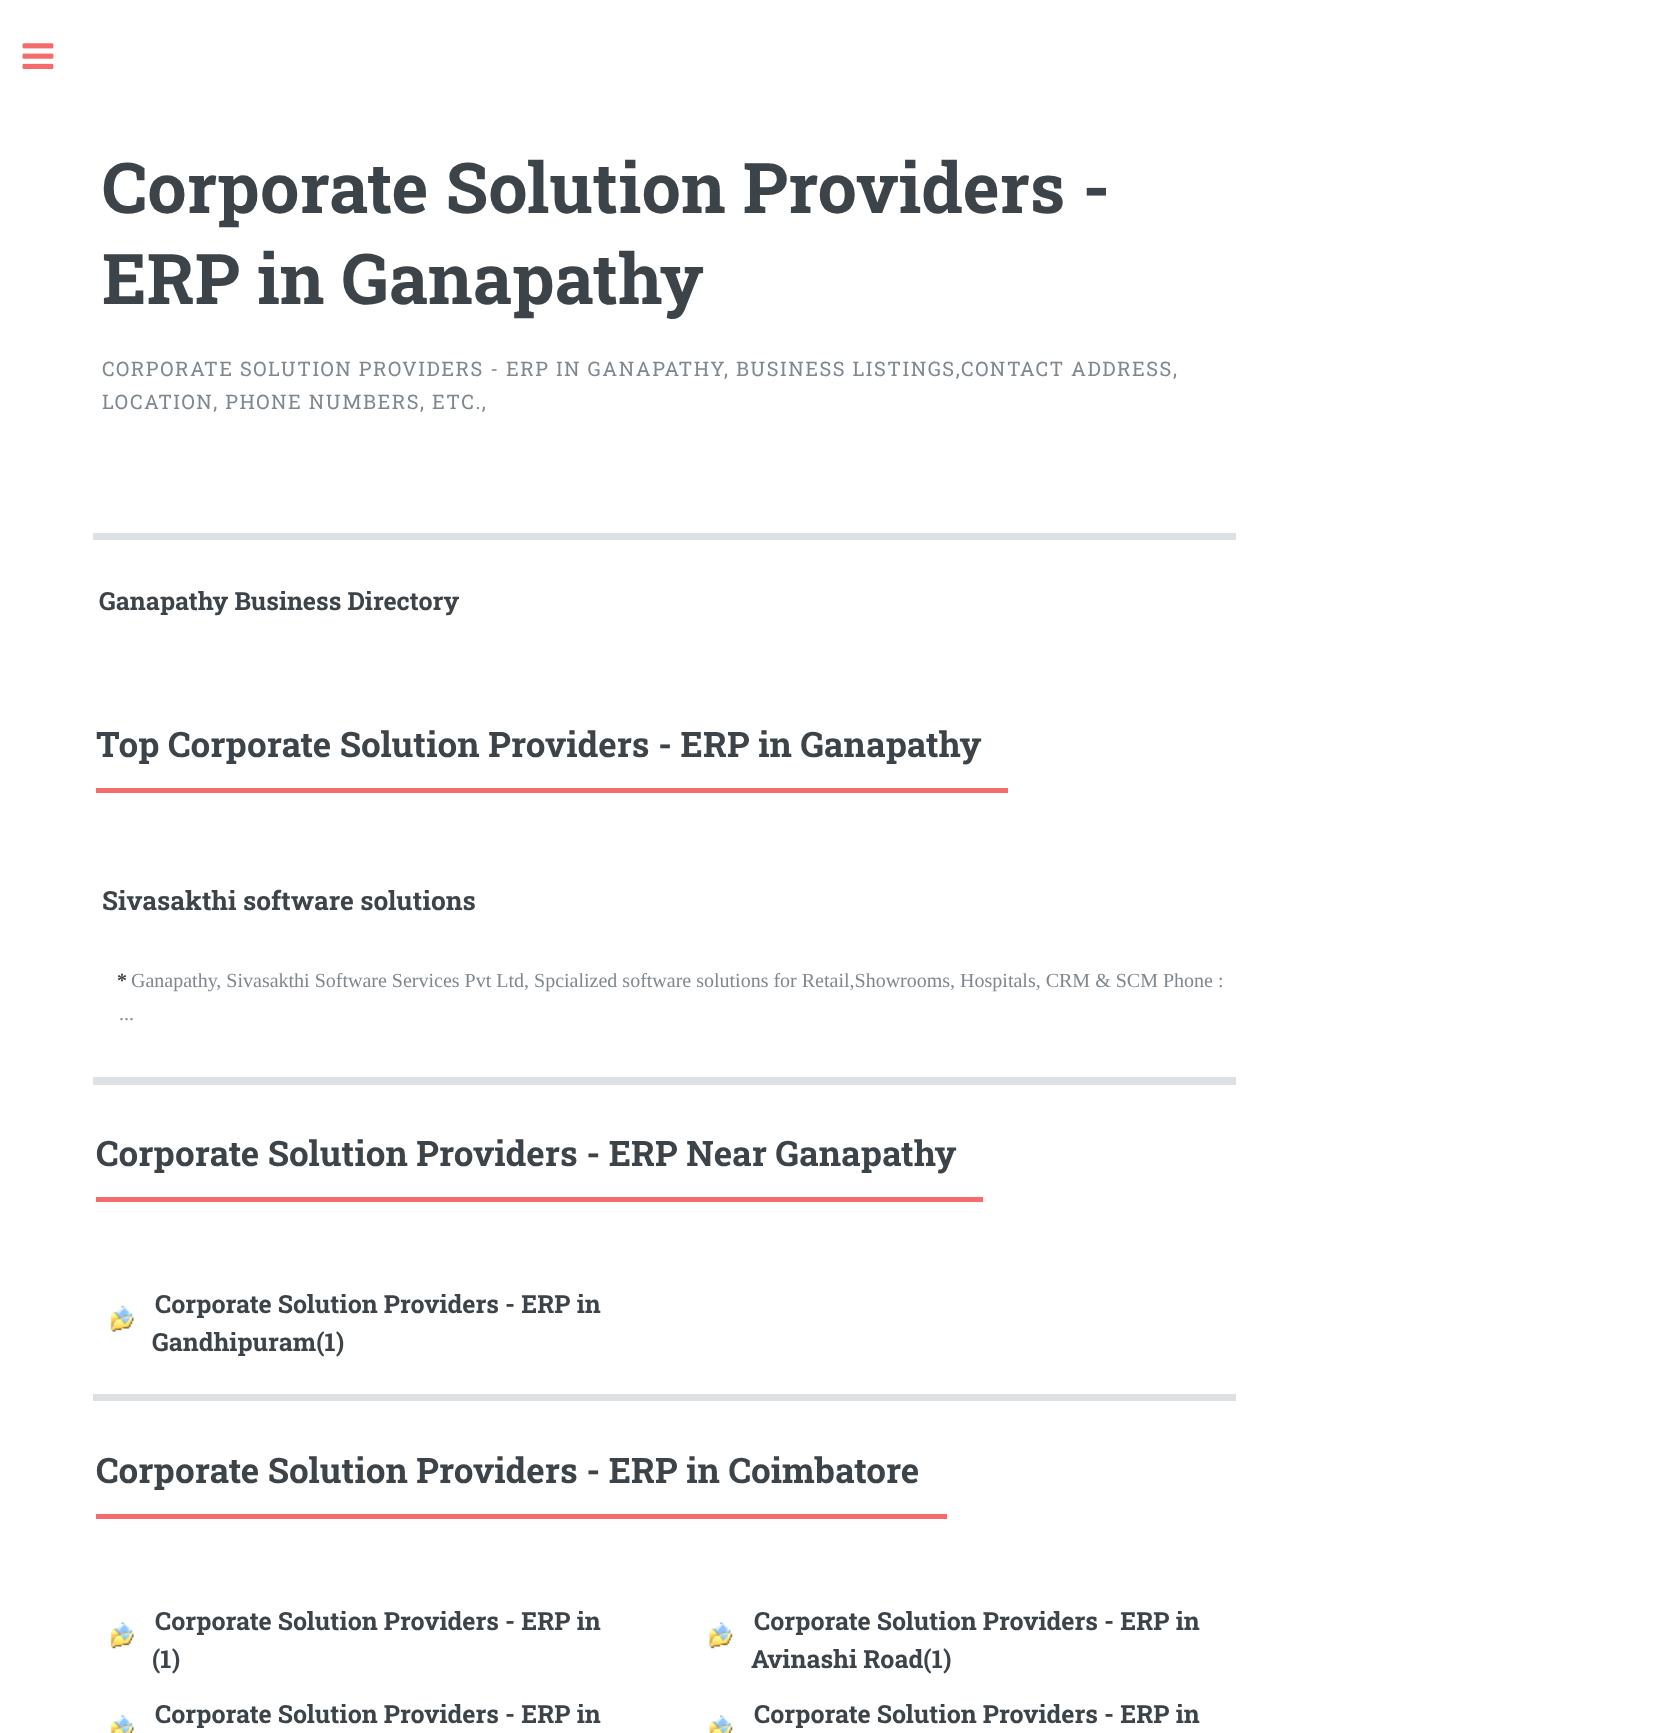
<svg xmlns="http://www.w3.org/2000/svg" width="1653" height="1733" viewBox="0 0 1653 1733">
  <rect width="100%" height="100%" fill="#ffffff"/>
  <image x="22" y="43" width="32" height="26" href="img1.png"/>
  <text x="102" y="213" font-family="Roboto Slab" font-size="70" font-weight="bold" fill="#3d4449">Corporate Solution Providers -</text>
  <text x="102" y="304" font-family="Roboto Slab" font-size="70" font-weight="bold" fill="#3d4449">ERP in Ganapathy</text>
  <text x="102" y="376" font-family="Roboto Slab" font-size="20" letter-spacing="1.5" fill="#7f888f">CORPORATE SOLUTION PROVIDERS - ERP IN GANAPATHY, BUSINESS LISTINGS,CONTACT ADDRESS,</text>
  <text x="102" y="409" font-family="Roboto Slab" font-size="20" letter-spacing="1.5" fill="#7f888f">LOCATION, PHONE NUMBERS, ETC.,</text>
  <rect x="93" y="533" width="1143" height="7" fill="#dde1e3"/>
  <text x="99" y="610" font-family="Roboto Slab" font-size="25" font-weight="bold" fill="#3d4449">Ganapathy Business Directory</text>
  <rect x="96" y="788" width="912" height="5" fill="#f56a6a"/>
  <text x="96" y="757" font-family="Roboto Slab" font-size="35" font-weight="bold" fill="#3d4449">Top Corporate Solution Providers - ERP in Ganapathy</text>
  <text x="102" y="910" font-family="Roboto Slab" font-size="26.25" font-weight="bold" fill="#3d4449">Sivasakthi software solutions</text>
  <text x="117" y="987" font-family="Liberation Serif" font-size="20" font-weight="bold" fill="#3d4449">*</text>
  <text x="131" y="987" font-family="Liberation Serif" font-size="20" fill="#7f888f">Ganapathy, Sivasakthi Software Services Pvt Ltd, Spcialized software solutions for Retail,Showrooms, Hospitals, CRM &amp; SCM Phone :</text>
  <text x="119" y="1020" font-family="Liberation Serif" font-size="20" fill="#7f888f">...</text>
  <rect x="93" y="1077" width="1143" height="8" fill="#dde1e3"/>
  <rect x="96" y="1197" width="887" height="5" fill="#f56a6a"/>
  <text x="96" y="1166" font-family="Roboto Slab" font-size="35" font-weight="bold" fill="#3d4449">Corporate Solution Providers - ERP Near Ganapathy</text>
  <image x="110" y="1305" width="24" height="27" href="img2.png"/>
  <text x="155" y="1313" font-family="Roboto Slab" font-size="25" font-weight="bold" fill="#3d4449">Corporate Solution Providers - ERP in</text>
  <text x="152" y="1351" font-family="Roboto Slab" font-size="25" font-weight="bold" fill="#3d4449">Gandhipuram(1)</text>
  <rect x="93" y="1394" width="1143" height="7" fill="#dde1e3"/>
  <rect x="96" y="1514" width="851" height="5" fill="#f56a6a"/>
  <text x="96" y="1483" font-family="Roboto Slab" font-size="35" font-weight="bold" fill="#3d4449">Corporate Solution Providers - ERP in Coimbatore</text>
  <image x="110" y="1622" width="24" height="27" href="img3.png"/>
  <text x="155" y="1630" font-family="Roboto Slab" font-size="25" font-weight="bold" fill="#3d4449">Corporate Solution Providers - ERP in</text>
  <text x="152" y="1668" font-family="Roboto Slab" font-size="25" font-weight="bold" fill="#3d4449">(1)</text>
  <image x="709" y="1622" width="24" height="27" href="img4.png"/>
  <text x="754" y="1630" font-family="Roboto Slab" font-size="25" font-weight="bold" fill="#3d4449">Corporate Solution Providers - ERP in</text>
  <text x="751" y="1668" font-family="Roboto Slab" font-size="25" font-weight="bold" fill="#3d4449">Avinashi Road(1)</text>
  <image x="110" y="1715" width="24" height="18" href="img5.png"/>
  <text x="155" y="1723" font-family="Roboto Slab" font-size="25" font-weight="bold" fill="#3d4449">Corporate Solution Providers - ERP in</text>
  <image x="709" y="1715" width="24" height="18" href="img6.png"/>
  <text x="754" y="1723" font-family="Roboto Slab" font-size="25" font-weight="bold" fill="#3d4449">Corporate Solution Providers - ERP in</text>
</svg>
